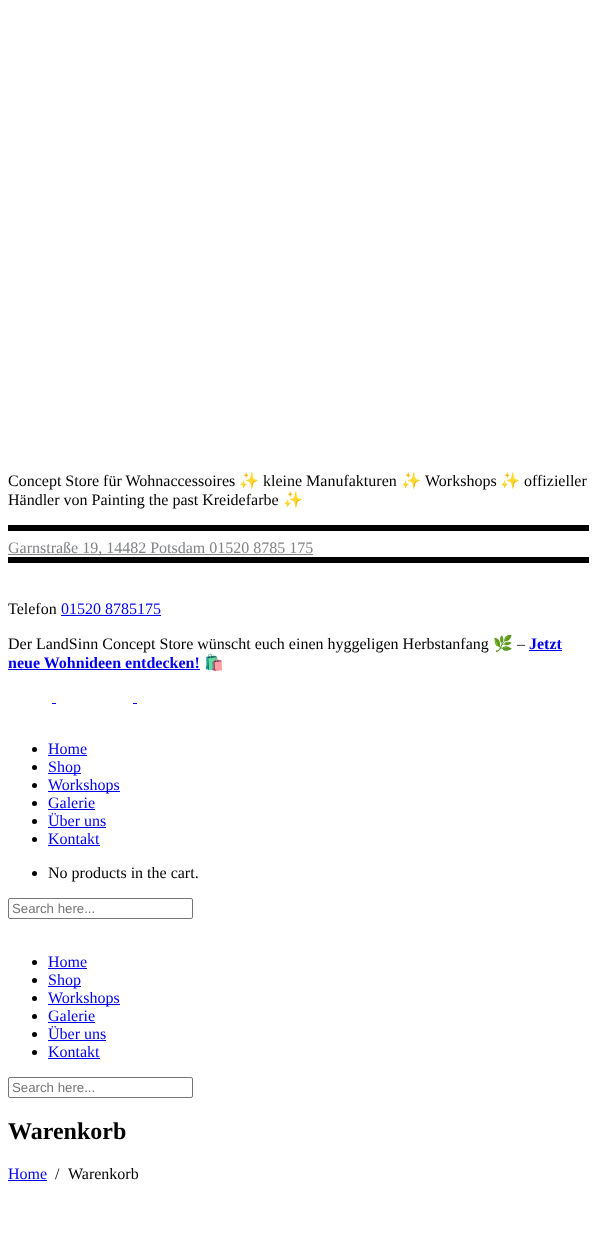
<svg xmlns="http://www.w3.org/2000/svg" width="597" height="1257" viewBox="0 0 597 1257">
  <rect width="100%" height="100%" fill="#ffffff"/>
  <text x="8" y="486" font-family="Liberation Serif" font-size="16" fill="#000000">Concept Store für Wohnaccessoires</text>
  <text x="239" y="486" font-family="Noto Color Emoji" font-size="16" fill="#000000">✨</text>
  <text x="263" y="486" font-family="Liberation Serif" font-size="16" fill="#000000">kleine Manufakturen</text>
  <text x="401" y="486" font-family="Noto Color Emoji" font-size="16" fill="#000000">✨</text>
  <text x="425" y="486" font-family="Liberation Serif" font-size="16" fill="#000000">Workshops</text>
  <text x="500" y="486" font-family="Noto Color Emoji" font-size="16" fill="#000000">✨</text>
  <text x="524" y="486" font-family="Liberation Serif" font-size="16" fill="#000000">offizieller</text>
  <text x="8" y="505" font-family="Liberation Serif" font-size="16" fill="#000000">Händler von Painting the past Kreidefarbe</text>
  <text x="283" y="505" font-family="Noto Color Emoji" font-size="16" fill="#000000">✨</text>
  <rect x="8" y="525" width="581" height="6" fill="#000000"/>
  <rect x="8" y="554" width="197" height="1" fill="#808285"/>
  <text x="8" y="553" font-family="Liberation Serif" font-size="16" fill="#808285">Garnstraße 19, 14482 Potsdam 01520 8785 175</text>
  <rect x="205" y="554" width="108" height="1" fill="#808285"/>
  <rect x="8" y="557" width="581" height="6" fill="#000000"/>
  <text x="8" y="614" font-family="Liberation Serif" font-size="16" fill="#000000">Telefon</text>
  <text x="61" y="614" font-family="Liberation Serif" font-size="16" fill="#0000ee">01520 8785175</text>
  <rect x="61" y="615" width="100" height="1" fill="#0000ee"/>
  <text x="8" y="649" font-family="Liberation Serif" font-size="16" fill="#000000">Der LandSinn Concept Store wünscht euch einen hyggeligen Herbstanfang</text>
  <text x="493" y="649" font-family="Noto Color Emoji" font-size="16" fill="#000000">🌿</text>
  <text x="517" y="649" font-family="Liberation Serif" font-size="16" fill="#000000">–</text>
  <text x="529" y="649" font-family="Liberation Serif" font-size="16" font-weight="bold" fill="#0000ee">Jetzt</text>
  <rect x="529" y="650" width="33" height="1" fill="#0000ee"/>
  <text x="8" y="668" font-family="Liberation Serif" font-size="16" font-weight="bold" fill="#0000ee">neue Wohnideen entdecken!</text>
  <rect x="8" y="669" width="192" height="1" fill="#0000ee"/>
  <text x="204" y="668" font-family="Noto Color Emoji" font-size="16" fill="#000000">🛍️</text>
  <rect x="52" y="703" width="4" height="1" fill="#0000ee"/>
  <rect x="133" y="703" width="4" height="1" fill="#0000ee"/>
  <circle cx="34.5" cy="749.5" r="2.5" fill="#000000"/>
  <text x="48" y="754" font-family="Liberation Serif" font-size="16" fill="#0000ee">Home</text>
  <rect x="48" y="755" width="39" height="1" fill="#0000ee"/>
  <circle cx="34.5" cy="767.5" r="2.5" fill="#000000"/>
  <rect x="48" y="773" width="33" height="1" fill="#0000ee"/>
  <text x="48" y="772" font-family="Liberation Serif" font-size="16" fill="#0000ee">Shop</text>
  <circle cx="34.5" cy="785.5" r="2.5" fill="#000000"/>
  <rect x="48" y="791" width="72" height="1" fill="#0000ee"/>
  <text x="48" y="790" font-family="Liberation Serif" font-size="16" fill="#0000ee">Workshops</text>
  <circle cx="34.5" cy="803.5" r="2.5" fill="#000000"/>
  <text x="48" y="808" font-family="Liberation Serif" font-size="16" fill="#0000ee">Galerie</text>
  <rect x="48" y="809" width="47" height="1" fill="#0000ee"/>
  <circle cx="34.5" cy="821.5" r="2.5" fill="#000000"/>
  <text x="48" y="826" font-family="Liberation Serif" font-size="16" fill="#0000ee">Über uns</text>
  <rect x="48" y="827" width="58" height="1" fill="#0000ee"/>
  <circle cx="34.5" cy="839.5" r="2.5" fill="#000000"/>
  <text x="48" y="844" font-family="Liberation Serif" font-size="16" fill="#0000ee">Kontakt</text>
  <rect x="48" y="845" width="52" height="1" fill="#0000ee"/>
  <circle cx="34.5" cy="873.5" r="2.5" fill="#000000"/>
  <text x="48" y="878" font-family="Liberation Serif" font-size="16" fill="#000000">No products in the cart.</text>
  <rect x="8.5" y="898.5" width="184" height="20" rx="1.5" fill="none" stroke="#767676"/>
  <text x="12" y="913" font-family="Liberation Sans" font-size="13.25" fill="#757575">Search here...</text>
  <circle cx="34.5" cy="962.5" r="2.5" fill="#000000"/>
  <text x="48" y="967" font-family="Liberation Serif" font-size="16" fill="#0000ee">Home</text>
  <rect x="48" y="968" width="39" height="1" fill="#0000ee"/>
  <circle cx="34.5" cy="980.5" r="2.5" fill="#000000"/>
  <rect x="48" y="986" width="33" height="1" fill="#0000ee"/>
  <text x="48" y="985" font-family="Liberation Serif" font-size="16" fill="#0000ee">Shop</text>
  <circle cx="34.5" cy="998.5" r="2.5" fill="#000000"/>
  <rect x="48" y="1004" width="72" height="1" fill="#0000ee"/>
  <text x="48" y="1003" font-family="Liberation Serif" font-size="16" fill="#0000ee">Workshops</text>
  <circle cx="34.5" cy="1016.5" r="2.5" fill="#000000"/>
  <text x="48" y="1021" font-family="Liberation Serif" font-size="16" fill="#0000ee">Galerie</text>
  <rect x="48" y="1022" width="47" height="1" fill="#0000ee"/>
  <circle cx="34.5" cy="1034.5" r="2.5" fill="#000000"/>
  <text x="48" y="1039" font-family="Liberation Serif" font-size="16" fill="#0000ee">Über uns</text>
  <rect x="48" y="1040" width="58" height="1" fill="#0000ee"/>
  <circle cx="34.5" cy="1052.5" r="2.5" fill="#000000"/>
  <text x="48" y="1057" font-family="Liberation Serif" font-size="16" fill="#0000ee">Kontakt</text>
  <rect x="48" y="1058" width="52" height="1" fill="#0000ee"/>
  <rect x="8.5" y="1077.5" width="184" height="20" rx="1.5" fill="none" stroke="#767676"/>
  <text x="12" y="1092" font-family="Liberation Sans" font-size="13.25" fill="#757575">Search here...</text>
  <text x="8" y="1139" font-family="Liberation Serif" font-size="24" font-weight="bold" fill="#000000">Warenkorb</text>
  <text x="8" y="1179" font-family="Liberation Serif" font-size="16" fill="#0000ee">Home</text>
  <rect x="8" y="1180" width="39" height="1" fill="#0000ee"/>
  <text x="55" y="1179" font-family="Liberation Serif" font-size="16" fill="#000000">/</text>
  <text x="68" y="1179" font-family="Liberation Serif" font-size="16" fill="#000000">Warenkorb</text>
</svg>
